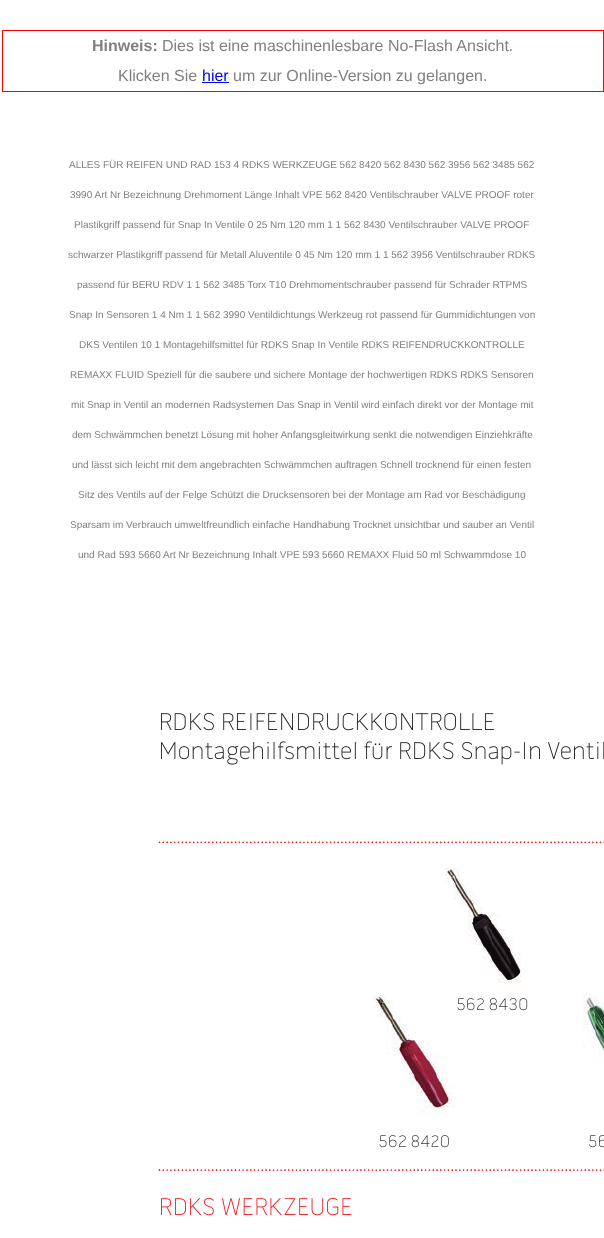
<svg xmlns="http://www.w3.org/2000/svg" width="604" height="1238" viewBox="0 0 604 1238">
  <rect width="100%" height="100%" fill="#ffffff"/>
  <rect x="2.5" y="30.5" width="601" height="61" fill="none" stroke="#ff0000"/>
  <text x="92" y="51" font-family="Liberation Sans" font-size="16" font-weight="bold" fill="#808080">Hinweis:</text>
  <text x="162" y="51" font-family="Liberation Sans" font-size="16" fill="#808080">Dies ist eine maschinenlesbare No-Flash Ansicht.</text>
  <text x="118" y="81" font-family="Liberation Sans" font-size="16" fill="#808080">Klicken Sie</text>
  <text x="202" y="81" font-family="Liberation Sans" font-size="16" fill="#0000ee">hier</text>
  <rect x="202" y="82" width="27" height="1" fill="#0000ee"/>
  <text x="233" y="81" font-family="Liberation Sans" font-size="16" fill="#808080">um zur Online-Version zu gelangen.</text>
  <text x="69" y="168" font-family="Liberation Sans" font-size="10" fill="#808080">ALLES FÜR REIFEN UND RAD 153 4 RDKS WERKZEUGE 562 8420 562 8430 562 3956 562 3485 562</text>
  <text x="70" y="198" font-family="Liberation Sans" font-size="10" fill="#808080">3990 Art Nr Bezeichnung Drehmoment Länge Inhalt VPE 562 8420 Ventilschrauber VALVE PROOF roter</text>
  <text x="74" y="228" font-family="Liberation Sans" font-size="10" fill="#808080">Plastikgriff passend für Snap In Ventile 0 25 Nm 120 mm 1 1 562 8430 Ventilschrauber VALVE PROOF</text>
  <text x="68" y="258" font-family="Liberation Sans" font-size="10" fill="#808080">schwarzer Plastikgriff passend für Metall</text>
  <text x="249" y="258" font-family="Liberation Sans" font-size="10" fill="#808080">Aluventile 0 45 Nm 120 mm 1 1 562 3956 Ventilschrauber RDKS</text>
  <text x="77" y="288" font-family="Liberation Sans" font-size="10" fill="#808080">passend für BERU RDV 1 1 562 3485 Torx T10 Drehmomentschrauber passend für Schrader RTPMS</text>
  <text x="69" y="318" font-family="Liberation Sans" font-size="10" fill="#808080">Snap In Sensoren 1 4 Nm 1 1 562 3990 Ventildichtungs Werkzeug rot passend für Gummidichtungen von</text>
  <text x="79" y="348" font-family="Liberation Sans" font-size="10" fill="#808080">DKS Ventilen 10 1 Montagehilfsmittel für RDKS Snap In Ventile RDKS REIFENDRUCKKONTROLLE</text>
  <text x="70" y="378" font-family="Liberation Sans" font-size="10" fill="#808080">REMAXX FLUID Speziell für die saubere und sichere Montage der hochwertigen RDKS RDKS Sensoren</text>
  <text x="71" y="408" font-family="Liberation Sans" font-size="10" fill="#808080">mit Snap in Ventil an modernen Radsystemen Das Snap in Ventil wird einfach direkt vor der Montage mit</text>
  <text x="72" y="438" font-family="Liberation Sans" font-size="10" fill="#808080">dem Schwämmchen benetzt Lösung mit hoher Anfangsgleitwirkung senkt die notwendigen Einziehkräfte</text>
  <text x="72" y="468" font-family="Liberation Sans" font-size="10" fill="#808080">und lässt sich leicht mit dem angebrachten Schwämmchen auftragen Schnell trocknend für einen festen</text>
  <text x="78" y="498" font-family="Liberation Sans" font-size="10" fill="#808080">Sitz des Ventils auf der Felge Schützt die Drucksensoren bei der Montage am Rad vor Beschädigung</text>
  <text x="70" y="528" font-family="Liberation Sans" font-size="10" fill="#808080">Sparsam im Verbrauch umweltfreundlich einfache Handhabung Trocknet unsichtbar und sauber an Ventil</text>
  <text x="78" y="558" font-family="Liberation Sans" font-size="10" fill="#808080">und Rad</text>
  <text x="119" y="558" font-family="Liberation Sans" font-size="10" fill="#808080">593 5660</text>
  <text x="163" y="558" font-family="Liberation Sans" font-size="10" fill="#808080">Art Nr Bezeichnung Inhalt VPE 593 5660 REMAXX Fluid 50 ml Schwammdose 10</text>
  <image x="158" y="712" width="446" height="504" href="img1.png"/>
</svg>
